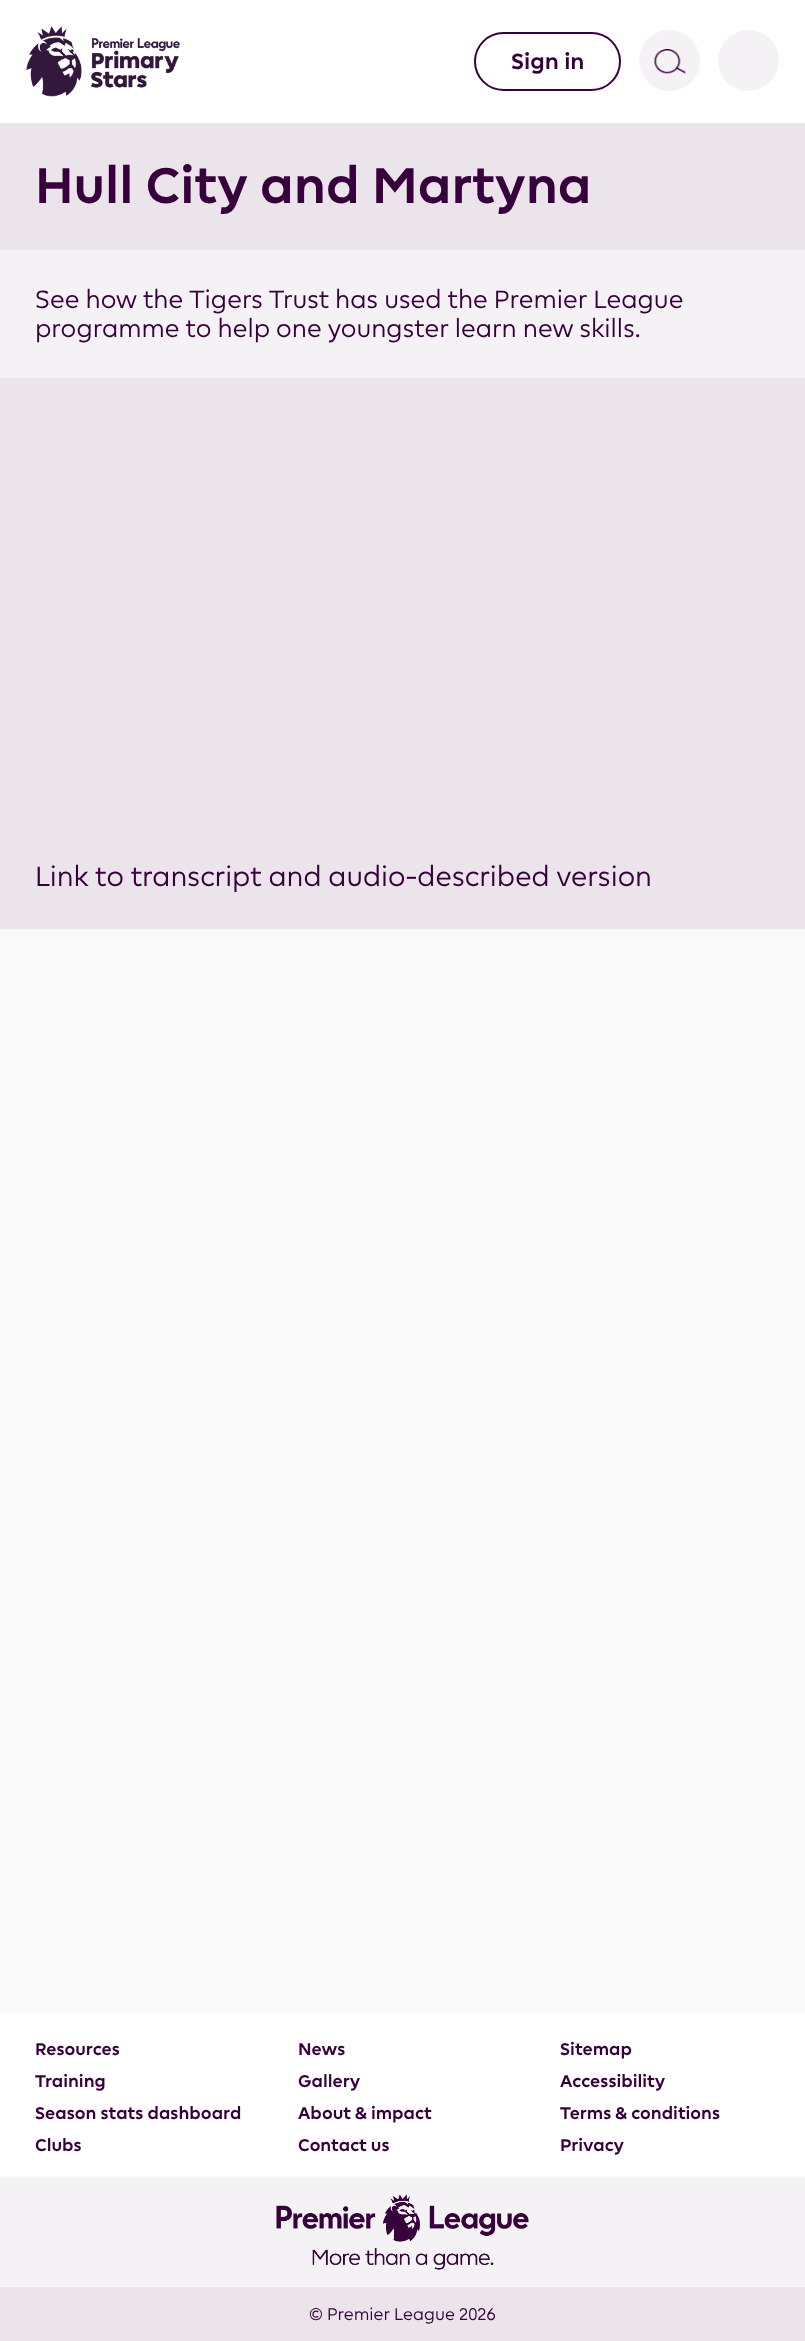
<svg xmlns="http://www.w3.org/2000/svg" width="805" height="2341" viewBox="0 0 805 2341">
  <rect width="100%" height="100%" fill="#faf9fa"/>
  <rect x="0" y="0" width="805" height="123" fill="#ffffff"/>
  <image x="26" y="26" width="154" height="71" href="img1.png"/>
  <rect x="475" y="33" width="145" height="57" rx="28.5" fill="none" stroke="#37003c" stroke-width="2"/>
  <text x="511" y="69" font-family="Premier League" font-size="22" font-weight="bold" fill="#37003c">Sign in</text>
  <circle cx="669.5" cy="60.5" r="30.5" fill="#f5f2f5"/>
  <image x="654" y="49" width="32" height="25" href="img2.png"/>
  <circle cx="748.5" cy="60.5" r="30.5" fill="#f5f2f5"/>
  <rect x="0" y="250" width="805" height="128" fill="#f5f2f5"/>
  <rect x="0" y="123" width="805" height="127" fill="#ebe5eb"/>
  <text x="35" y="203" font-family="Premier League" font-size="50.4" font-weight="bold" fill="#37003c">Hull City and Martyna</text>
  <text x="35" y="308" font-family="Premier League" font-size="25.2" fill="#37003c">See how the Tigers Trust has used the Premier League</text>
  <text x="35" y="337" font-family="Premier League" font-size="25.2" fill="#37003c">programme to help one youngster learn new skills.</text>
  <rect x="0" y="378" width="805" height="551" fill="#ebe5eb"/>
  <text x="35" y="886" font-family="Premier League" font-size="28" fill="#37003c">Link to transcript and audio-described version</text>
  <rect x="0" y="2013" width="805" height="164" fill="#ffffff"/>
  <text x="35" y="2055" font-family="Premier League" font-size="17" font-weight="bold" fill="#37003c">Resources</text>
  <text x="298" y="2055" font-family="Premier League" font-size="17" font-weight="bold" fill="#37003c">News</text>
  <text x="560" y="2055" font-family="Premier League" font-size="17" font-weight="bold" fill="#37003c">Sitemap</text>
  <text x="35" y="2087" font-family="Premier League" font-size="17" font-weight="bold" fill="#37003c">Training</text>
  <text x="298" y="2087" font-family="Premier League" font-size="17" font-weight="bold" fill="#37003c">Gallery</text>
  <text x="560" y="2087" font-family="Premier League" font-size="17" font-weight="bold" fill="#37003c">Accessibility</text>
  <text x="35" y="2119" font-family="Premier League" font-size="17" font-weight="bold" fill="#37003c">Season stats dashboard</text>
  <text x="298" y="2119" font-family="Premier League" font-size="17" font-weight="bold" fill="#37003c">About &amp; impact</text>
  <text x="560" y="2119" font-family="Premier League" font-size="17" font-weight="bold" fill="#37003c">Terms &amp; conditions</text>
  <text x="35" y="2151" font-family="Premier League" font-size="17" font-weight="bold" fill="#37003c">Clubs</text>
  <text x="298" y="2151" font-family="Premier League" font-size="17" font-weight="bold" fill="#37003c">Contact us</text>
  <text x="560" y="2151" font-family="Premier League" font-size="17" font-weight="bold" fill="#37003c">Privacy</text>
  <rect x="0" y="2177" width="805" height="110" fill="#f5f2f5"/>
  <image x="276" y="2194" width="253" height="76" href="img3.png"/>
  <rect x="0" y="2287" width="805" height="54" fill="#ebe5eb"/>
  <text x="309" y="2320" font-family="Premier League" font-size="17" fill="#37003c">© Premier League 2026</text>
</svg>
